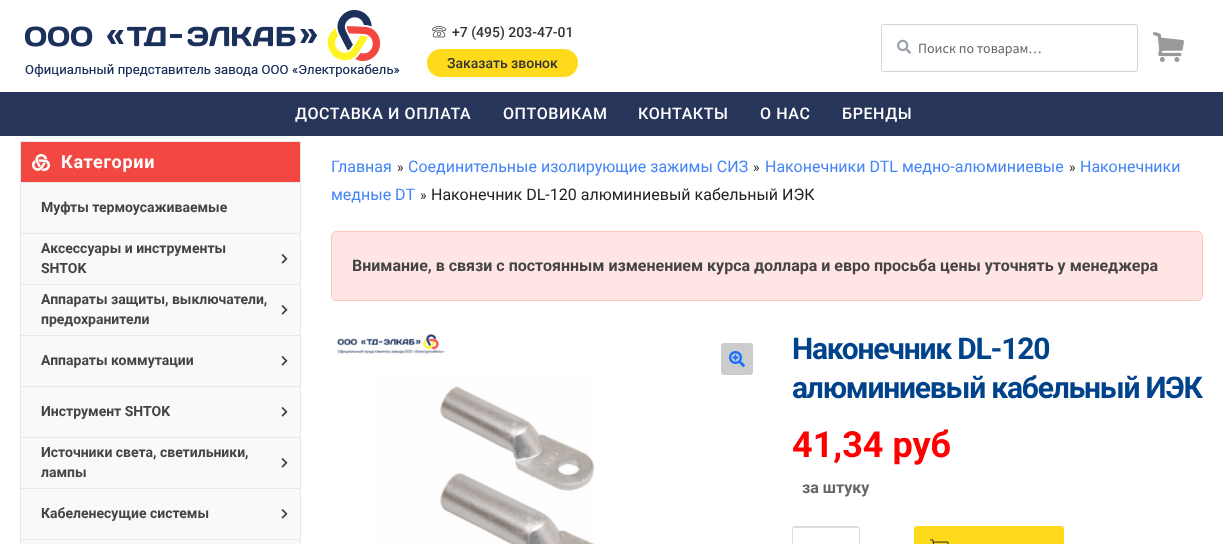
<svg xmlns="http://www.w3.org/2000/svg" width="1223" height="544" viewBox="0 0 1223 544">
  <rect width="100%" height="100%" fill="#ffffff"/>
  <image x="24" y="10" width="376" height="67" href="img1.png"/>
  <image x="432" y="26" width="14" height="12" href="img2.png"/>
  <text x="452" y="37" font-family="Roboto" font-size="14" font-weight="500" fill="#333333">+7 (495) 203-47-01</text>
  <rect x="427" y="49" width="151" height="28" rx="14" fill="#ffda1b"/>
  <text x="447" y="68" font-family="Roboto" font-size="14" font-weight="500" fill="#333333">Заказать звонок</text>
  <rect x="881.5" y="24.5" width="256" height="47" rx="2.5" fill="none" stroke="#d4d4d4"/>
  <image x="897" y="39" width="14" height="15" href="img3.png"/>
  <text x="918" y="53" font-family="Source Sans Pro" font-size="14" fill="#666666">Поиск по товарам…</text>
  <image x="1153" y="32" width="31" height="30" href="img4.png"/>
  <rect x="0" y="92" width="1223" height="44" fill="#28355b"/>
  <text x="295" y="119" font-family="Roboto" font-size="16" font-weight="500" letter-spacing="0.6" fill="#ffffff">ДОСТАВКА И ОПЛАТА</text>
  <text x="503" y="119" font-family="Roboto" font-size="16" font-weight="500" letter-spacing="0.6" fill="#ffffff">ОПТОВИКАМ</text>
  <text x="638" y="119" font-family="Roboto" font-size="16" font-weight="500" letter-spacing="0.6" fill="#ffffff">КОНТАКТЫ</text>
  <text x="760" y="119" font-family="Roboto" font-size="16" font-weight="500" letter-spacing="0.6" fill="#ffffff">О НАС</text>
  <text x="842" y="119" font-family="Roboto" font-size="16" font-weight="500" letter-spacing="0.6" fill="#ffffff">БРЕНДЫ</text>
  <rect x="20.5" y="141.5" width="280" height="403" fill="none" stroke="#e8e8e8"/>
  <rect x="21" y="142" width="279" height="40" fill="#f24841"/>
  <image x="32" y="154" width="18" height="17" href="img5.png"/>
  <text x="61" y="168" font-family="Roboto" font-size="18" font-weight="bold" letter-spacing="0.75" fill="#ffffff">Категории</text>
  <rect x="21" y="183" width="279" height="361" fill="#f9f9f9"/>
  <rect x="21" y="182" width="279" height="1" fill="#e8e8e8"/>
  <text x="41" y="212" font-family="Roboto" font-size="14" font-weight="bold" fill="#444444">Муфты термоусаживаемые</text>
  <rect x="21" y="233" width="279" height="1" fill="#e8e8e8"/>
  <text x="41" y="253" font-family="Roboto" font-size="14" font-weight="bold" fill="#444444">Аксессуары и инструменты</text>
  <image x="281" y="254" width="7" height="10" href="img6.png"/>
  <text x="41" y="273" font-family="Roboto" font-size="14" font-weight="bold" fill="#444444">SHTOK</text>
  <rect x="21" y="284" width="279" height="1" fill="#e8e8e8"/>
  <text x="41" y="304" font-family="Roboto" font-size="14" font-weight="bold" fill="#444444">Аппараты защиты, выключатели,</text>
  <image x="281" y="305" width="7" height="10" href="img6.png"/>
  <text x="41" y="324" font-family="Roboto" font-size="14" font-weight="bold" fill="#444444">предохранители</text>
  <rect x="21" y="335" width="279" height="1" fill="#e8e8e8"/>
  <text x="41" y="365" font-family="Roboto" font-size="14" font-weight="bold" fill="#444444">Аппараты коммутации</text>
  <image x="281" y="356" width="7" height="10" href="img6.png"/>
  <rect x="21" y="386" width="279" height="1" fill="#e8e8e8"/>
  <text x="41" y="416" font-family="Roboto" font-size="14" font-weight="bold" fill="#444444">Инструмент SHTOK</text>
  <image x="281" y="407" width="7" height="10" href="img6.png"/>
  <rect x="21" y="437" width="279" height="1" fill="#e8e8e8"/>
  <text x="41" y="457" font-family="Roboto" font-size="14" font-weight="bold" fill="#444444">Источники света, светильники,</text>
  <image x="281" y="458" width="7" height="10" href="img6.png"/>
  <text x="41" y="477" font-family="Roboto" font-size="14" font-weight="bold" fill="#444444">лампы</text>
  <rect x="21" y="488" width="279" height="1" fill="#e8e8e8"/>
  <text x="41" y="518" font-family="Roboto" font-size="14" font-weight="bold" fill="#444444">Кабеленесущие системы</text>
  <image x="281" y="509" width="7" height="10" href="img6.png"/>
  <rect x="21" y="539" width="279" height="1" fill="#e8e8e8"/>
  <text x="331" y="172" font-family="Roboto" font-size="16" fill="#4384f8">Главная</text>
  <text x="397" y="172" font-family="Roboto" font-size="14" fill="#222222">»</text>
  <text x="408" y="172" font-family="Roboto" font-size="16" fill="#4384f8">Соединительные изолирующие зажимы СИЗ</text>
  <text x="753" y="172" font-family="Roboto" font-size="14" fill="#222222">»</text>
  <text x="765" y="172" font-family="Roboto" font-size="16" fill="#4384f8">Наконечники DTL медно-алюминиевые</text>
  <text x="1069" y="172" font-family="Roboto" font-size="14" fill="#222222">»</text>
  <text x="1080" y="172" font-family="Roboto" font-size="16" fill="#4384f8">Наконечники</text>
  <text x="331" y="200" font-family="Roboto" font-size="16" fill="#4384f8">медные DT</text>
  <text x="420" y="200" font-family="Roboto" font-size="14" fill="#222222">»</text>
  <text x="431" y="200" font-family="Roboto" font-size="16" fill="#222222">Наконечник DL-120 алюминиевый кабельный ИЭК</text>
  <rect x="331.5" y="231.5" width="871" height="69" rx="4.5" fill="#ffe6e5" stroke="#ffc5c2"/>
  <text x="352" y="271" font-family="Roboto" font-size="16" font-weight="bold" fill="#444444">Внимание, в связи с постоянным изменением курса доллара и евро просьба цены уточнять у менеджера</text>
  <image x="335" y="333" width="260" height="211" href="img7.png"/>
  <rect x="721" y="343" width="32" height="32" rx="3" fill="#cccccc"/>
  <image x="729" y="351" width="16" height="16" href="img8.png"/>
  <text x="792" y="359" font-family="Roboto" font-size="30" font-weight="bold" letter-spacing="-1.2" fill="#00438a">Наконечник DL-120</text>
  <text x="792" y="398" font-family="Roboto" font-size="30" font-weight="bold" letter-spacing="-1.2" fill="#00438a">алюминиевый кабельный ИЭК</text>
  <text x="792" y="457" font-family="Roboto" font-size="36" font-weight="bold" fill="#ff0000">41,34 руб</text>
  <text x="802" y="493" font-family="Roboto" font-size="16" font-weight="bold" fill="#666666">за штуку</text>
  <path d="M795 528H858L859 530C859 524 850 527 847 527H805C802 527 793 524 793 530C793 529 794 528 795 528Z" fill="#dfdfdf"/>
  <rect x="792.5" y="526.5" width="67" height="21" rx="2.5" fill="none" stroke="#dedbdb"/>
  <rect x="914" y="526" width="150" height="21" rx="3" fill="#ffda1b"/>
  <image x="930" y="539" width="19" height="5" href="img9.png"/>
</svg>
